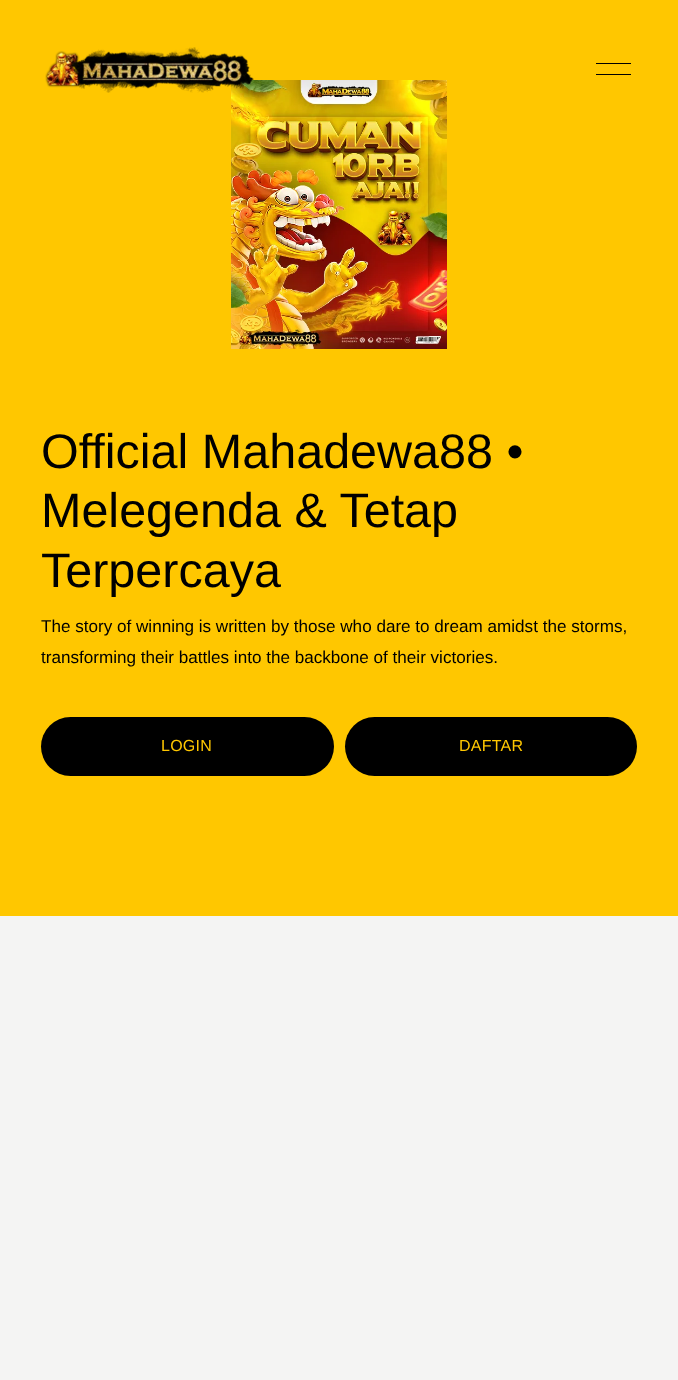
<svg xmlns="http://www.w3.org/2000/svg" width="678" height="1380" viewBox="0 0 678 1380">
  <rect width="100%" height="100%" fill="#f4f4f3"/>
  <rect x="0" y="0" width="678" height="916" fill="#ffc700"/>
  <image x="231" y="80" width="216" height="269" href="img2.png"/>
  <image x="45" y="47" width="209" height="46" href="img1.png"/>
  <rect x="596" y="63" width="35" height="1" fill="#000000"/>
  <rect x="596" y="74" width="35" height="1" fill="#000000"/>
  <text x="41" y="468" font-family="Liberation Sans" font-size="48.5" fill="#000000">Official Mahadewa88 •</text>
  <text x="41" y="527" font-family="Liberation Sans" font-size="48.5" fill="#000000">Melegenda &amp; Tetap</text>
  <text x="41" y="587" font-family="Liberation Sans" font-size="48.5" fill="#000000">Terpercaya</text>
  <text x="41" y="632" font-family="Liberation Sans" font-size="17.1" fill="#000000">The story of winning is written by those who dare to dream amidst the storms,</text>
  <text x="41" y="663" font-family="Liberation Sans" font-size="17.1" fill="#000000">transforming their battles into the backbone of their victories.</text>
  <rect x="41" y="717" width="293" height="59" rx="29.5" fill="#000000"/>
  <text x="161" y="751" font-family="Liberation Sans" font-size="16" letter-spacing="0.25" fill="#ffc700">LOGIN</text>
  <rect x="345" y="717" width="292" height="59" rx="29.5" fill="#000000"/>
  <text x="459" y="751" font-family="Liberation Sans" font-size="16" letter-spacing="0.25" fill="#ffc700">DAFTAR</text>
</svg>
